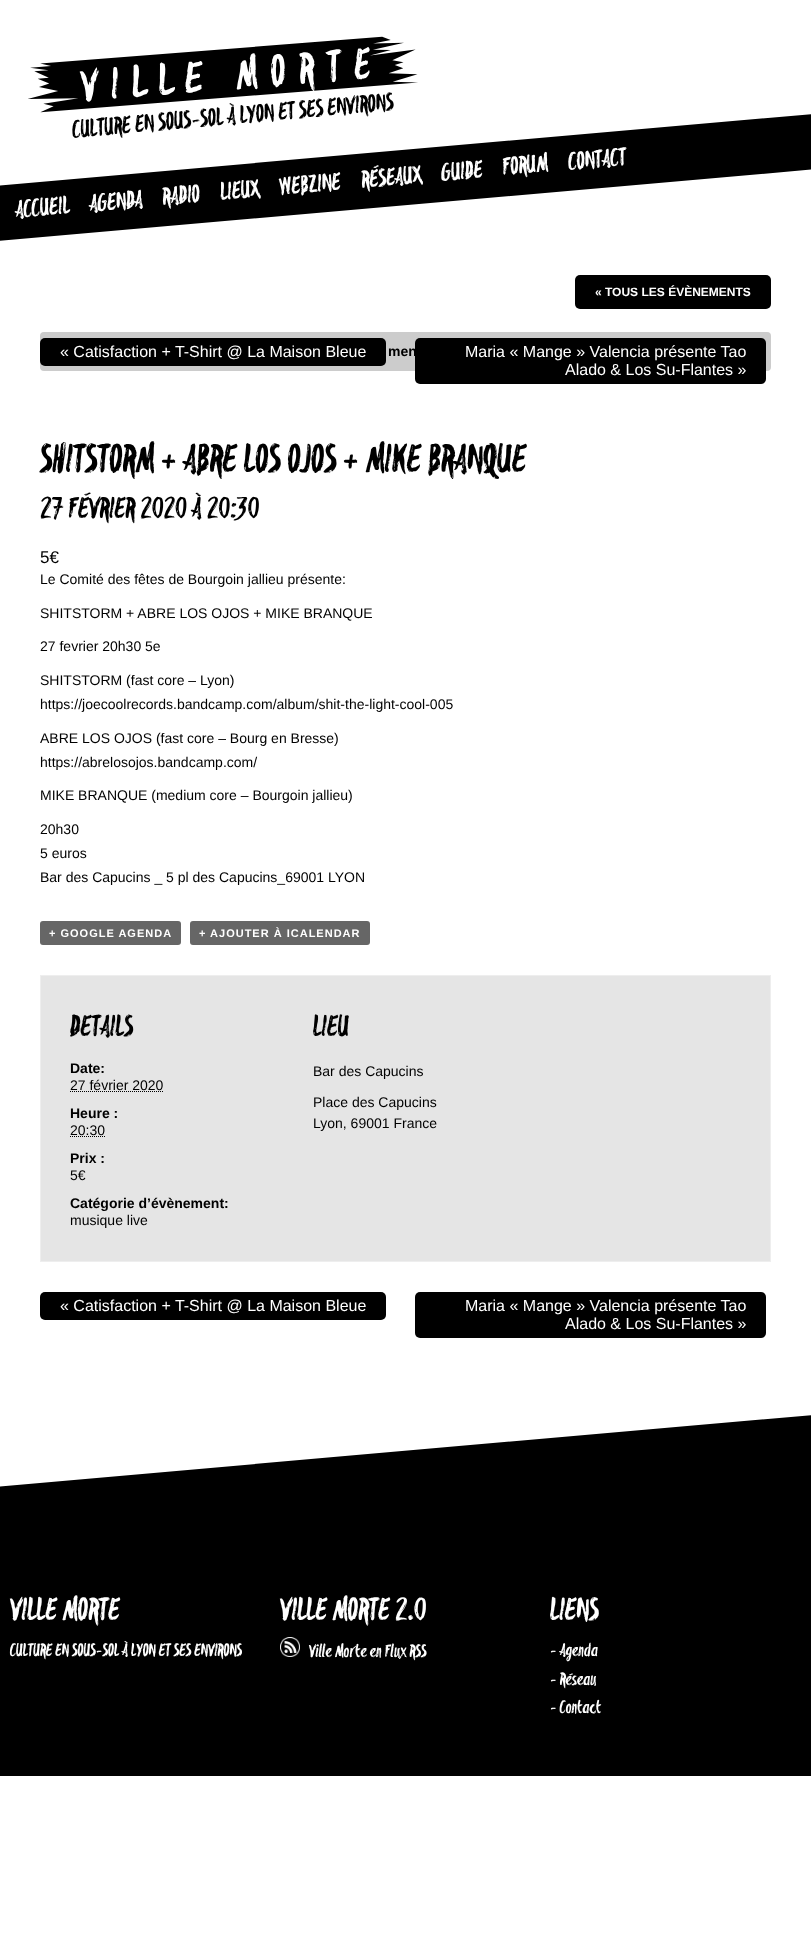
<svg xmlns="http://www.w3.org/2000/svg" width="811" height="1947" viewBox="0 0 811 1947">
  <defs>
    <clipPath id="clip1"><rect x="0" y="1326" width="811" height="450"/></clipPath>
  </defs>
  <rect width="100%" height="100%" fill="#ffffff"/>
  <text x="73" y="138" transform="rotate(-5 73 138)" font-family="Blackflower" font-size="25" font-weight="900" fill="#000000">CULTURE EN SOUS-SOL À LYON ET SES ENVIRONS</text>
  <image x="28" y="36" width="390" height="77" href="img1.png"/>
  <path d="M-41 189L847 111L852 166L-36 244Z" fill="#000000"/>
  <text x="16" y="218" transform="rotate(-5 16 218)" font-family="Blackflower" font-size="25" font-weight="900" fill="#ffffff">ACCUEIL</text>
  <text x="90" y="212" transform="rotate(-5 90 212)" font-family="Blackflower" font-size="25" font-weight="900" fill="#ffffff">AGENDA</text>
  <text x="163" y="205" transform="rotate(-5 163 205)" font-family="Blackflower" font-size="25" font-weight="900" fill="#ffffff">RADIO</text>
  <text x="221" y="200" transform="rotate(-5 221 200)" font-family="Blackflower" font-size="25" font-weight="900" fill="#ffffff">LIEUX</text>
  <text x="280" y="195" transform="rotate(-5 280 195)" font-family="Blackflower" font-size="25" font-weight="900" fill="#ffffff">WEBZINE</text>
  <text x="362" y="188" transform="rotate(-5 362 188)" font-family="Blackflower" font-size="25" font-weight="900" fill="#ffffff">RÉSEAUX</text>
  <text x="442" y="181" transform="rotate(-5 442 181)" font-family="Blackflower" font-size="25" font-weight="900" fill="#ffffff">GUIDE</text>
  <text x="503" y="175" transform="rotate(-5 503 175)" font-family="Blackflower" font-size="25" font-weight="900" fill="#ffffff">FORUM</text>
  <text x="569" y="170" transform="rotate(-5 569 170)" font-family="Blackflower" font-size="25" font-weight="900" fill="#ffffff">CONTACT</text>
  <rect x="575" y="275" width="196" height="34" rx="5" fill="#000000"/>
  <text x="595" y="296" font-family="Liberation Sans" font-size="12" font-weight="bold" fill="#ffffff">« TOUS LES ÉVÈNEMENTS</text>
  <rect x="40" y="332" width="731" height="39" rx="4" fill="#cccccc"/>
  <rect x="40" y="338" width="346" height="28" rx="5" fill="#000000"/>
  <text x="60" y="357" font-family="Liberation Sans" font-size="16" fill="#ffffff">« Catisfaction + T-Shirt @ La Maison Bleue</text>
  <rect x="415" y="338" width="351" height="46" rx="5" fill="#000000"/>
  <text x="465" y="357" font-family="Liberation Sans" font-size="16" fill="#ffffff">Maria « Mange » Valencia présente Tao</text>
  <text x="565" y="375" font-family="Liberation Sans" font-size="16" fill="#ffffff">Alado &amp; Los Su-Flantes »</text>
  <text x="388" y="356" font-family="Liberation Sans" font-size="14" font-weight="bold" fill="#000000">men</text>
  <text x="40" y="472" font-family="Blackflower" font-size="40" font-weight="900" fill="#000000">SHITSTORM + ABRE LOS OJOS + MIKE BRANQUE</text>
  <text x="40" y="518" font-family="Blackflower" font-size="30" font-weight="900" fill="#000000">27 FÉVRIER 2020 À 20:30</text>
  <text x="40" y="563" font-family="Liberation Sans" font-size="17" fill="#000000">5€</text>
  <text x="40" y="584" font-family="Liberation Sans" font-size="14" fill="#000000">Le Comité des fêtes de Bourgoin jallieu présente:</text>
  <text x="40" y="618" font-family="Liberation Sans" font-size="14" fill="#000000">SHITSTORM + ABRE LOS OJOS + MIKE BRANQUE</text>
  <text x="40" y="651" font-family="Liberation Sans" font-size="14" fill="#000000">27 fevrier 20h30 5e</text>
  <text x="40" y="685" font-family="Liberation Sans" font-size="14" fill="#000000">SHITSTORM (fast core – Lyon)</text>
  <text x="40" y="709" font-family="Liberation Sans" font-size="14" fill="#000000">https://joecoolrecords.bandcamp.com/album/shit-the-light-cool-005</text>
  <text x="40" y="743" font-family="Liberation Sans" font-size="14" fill="#000000">ABRE LOS OJOS (fast core – Bourg en Bresse)</text>
  <text x="40" y="767" font-family="Liberation Sans" font-size="14" fill="#000000">https://abrelosojos.bandcamp.com/</text>
  <text x="40" y="800" font-family="Liberation Sans" font-size="14" fill="#000000">MIKE BRANQUE (medium core – Bourgoin jallieu)</text>
  <text x="40" y="834" font-family="Liberation Sans" font-size="14" fill="#000000">20h30</text>
  <text x="40" y="858" font-family="Liberation Sans" font-size="14" fill="#000000">5 euros</text>
  <text x="40" y="882" font-family="Liberation Sans" font-size="14" fill="#000000">Bar des Capucins _ 5 pl des Capucins_69001 LYON</text>
  <rect x="40" y="921" width="141" height="24" rx="3" fill="#666666"/>
  <text x="49" y="937" font-family="Liberation Sans" font-size="11" font-weight="bold" letter-spacing="1" fill="#ffffff">+ GOOGLE AGENDA</text>
  <rect x="190" y="921" width="180" height="24" rx="3" fill="#666666"/>
  <text x="199" y="937" font-family="Liberation Sans" font-size="11" font-weight="bold" letter-spacing="1" fill="#ffffff">+ AJOUTER À ICALENDAR</text>
  <rect x="40.5" y="975.5" width="730" height="286" fill="#e5e5e5" stroke="#eeeeee"/>
  <text x="70" y="1036" font-family="Blackflower" font-size="30" font-weight="900" fill="#000000">DETAILS</text>
  <text x="70" y="1073" font-family="Liberation Sans" font-size="14" font-weight="bold" fill="#000000">Date:</text>
  <text x="70" y="1090" font-family="Liberation Sans" font-size="14" fill="#000000">27 février 2020</text>
  <path d="M70 1091.5H163.5" fill="none" stroke="#000000" stroke-dasharray="1 1"/>
  <text x="70" y="1118" font-family="Liberation Sans" font-size="14" font-weight="bold" fill="#000000">Heure :</text>
  <text x="70" y="1135" font-family="Liberation Sans" font-size="14" fill="#000000">20:30</text>
  <path d="M70 1136.5H105" fill="none" stroke="#000000" stroke-dasharray="1 1"/>
  <text x="70" y="1163" font-family="Liberation Sans" font-size="14" font-weight="bold" fill="#000000">Prix :</text>
  <text x="70" y="1180" font-family="Liberation Sans" font-size="14" fill="#000000">5€</text>
  <text x="70" y="1208" font-family="Liberation Sans" font-size="14" font-weight="bold" fill="#000000">Catégorie d’évènement:</text>
  <text x="70" y="1225" font-family="Liberation Sans" font-size="14" fill="#000000">musique live</text>
  <text x="313" y="1036" font-family="Blackflower" font-size="30" font-weight="900" fill="#000000">LIEU</text>
  <text x="313" y="1076" font-family="Liberation Sans" font-size="14" fill="#000000">Bar des Capucins</text>
  <text x="313" y="1107" font-family="Liberation Sans" font-size="14" fill="#000000">Place des Capucins</text>
  <text x="313" y="1128" font-family="Liberation Sans" font-size="14" fill="#000000">Lyon, 69001 France</text>
  <rect x="40" y="1292" width="346" height="28" rx="5" fill="#000000"/>
  <text x="60" y="1311" font-family="Liberation Sans" font-size="16" fill="#ffffff">« Catisfaction + T-Shirt @ La Maison Bleue</text>
  <rect x="415" y="1292" width="351" height="46" rx="5" fill="#000000"/>
  <text x="465" y="1311" font-family="Liberation Sans" font-size="16" fill="#ffffff">Maria « Mange » Valencia présente Tao</text>
  <text x="565" y="1329" font-family="Liberation Sans" font-size="16" fill="#ffffff">Alado &amp; Los Su-Flantes »</text>
  <g clip-path="url(#clip1)">
    <path d="M-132 1498L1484 1356L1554 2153L-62 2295Z" fill="#000000"/>
  </g>
  <text x="10" y="1620" font-family="Blackflower" font-size="32" font-weight="900" fill="#ffffff">VILLE MORTE</text>
  <text x="10" y="1656" font-family="Blackflower" font-size="18" font-weight="900" fill="#ffffff">CULTURE EN SOUS-SOL À LYON ET SES ENVIRONS</text>
  <text x="280" y="1620" font-family="Blackflower" font-size="32" font-weight="900" fill="#ffffff">VILLE MORTE 2.0</text>
  <image x="280" y="1637" width="20" height="20" href="img2.png"/>
  <text x="309" y="1657" font-family="Blackflower" font-size="18" font-weight="900" fill="#ffffff">Ville Morte en Flux RSS</text>
  <text x="550" y="1620" font-family="Blackflower" font-size="32" font-weight="900" fill="#ffffff">LIENS</text>
  <text x="550" y="1656" font-family="Blackflower" font-size="18" font-weight="900" fill="#ffffff">- Agenda</text>
  <text x="550" y="1685" font-family="Blackflower" font-size="18" font-weight="900" fill="#ffffff">- Réseau</text>
  <text x="550" y="1713" font-family="Blackflower" font-size="18" font-weight="900" fill="#ffffff">- Contact</text>
</svg>
